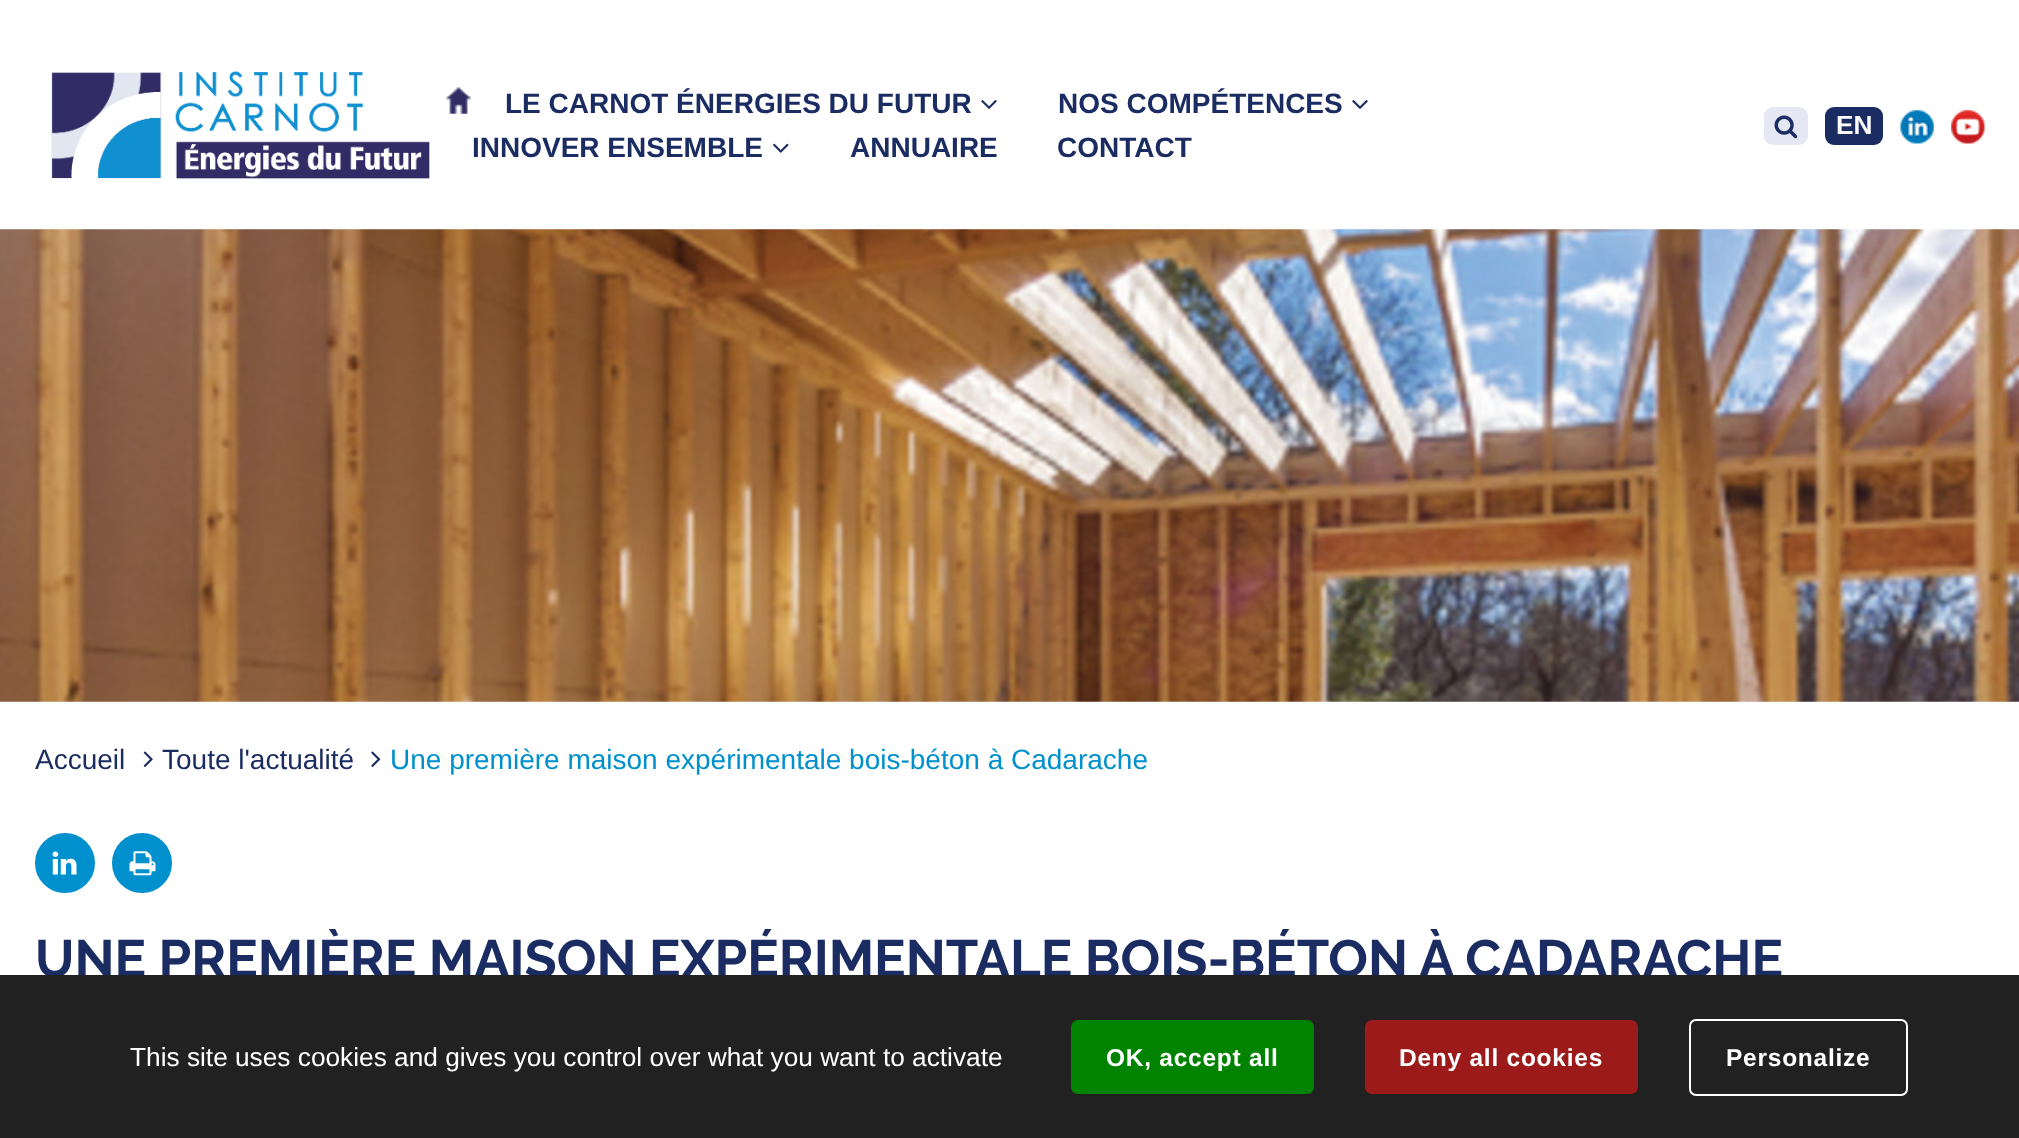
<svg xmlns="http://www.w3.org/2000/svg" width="2019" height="1138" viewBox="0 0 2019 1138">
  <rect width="100%" height="100%" fill="#ffffff"/>
  <image x="51" y="71" width="379" height="108" href="img1.png"/>
  <image x="446" y="87" width="25" height="27" href="img2.png"/>
  <text x="505" y="113" font-family="Liberation Sans" font-size="28" font-weight="bold" fill="#1a2c61">LE CARNOT ÉNERGIES DU FUTUR</text>
  <image x="981" y="100" width="16" height="9" href="img3.png"/>
  <text x="1058" y="113" font-family="Liberation Sans" font-size="28" font-weight="bold" fill="#1a2c61">NOS COMPÉTENCES</text>
  <image x="1352" y="100" width="16" height="9" href="img3.png"/>
  <text x="472" y="157" font-family="Liberation Sans" font-size="28" font-weight="bold" fill="#1a2c61">INNOVER ENSEMBLE</text>
  <image x="773" y="143" width="16" height="10" href="img4.png"/>
  <text x="850" y="157" font-family="Liberation Sans" font-size="28" font-weight="bold" fill="#1a2c61">ANNUAIRE</text>
  <text x="1057" y="157" font-family="Liberation Sans" font-size="28" font-weight="bold" fill="#1a2c61">CONTACT</text>
  <rect x="1764" y="107" width="44" height="38" rx="9" fill="#e5e8f4"/>
  <image x="1774" y="115" width="24" height="24" href="img5.png"/>
  <rect x="1825" y="107" width="58" height="38" rx="9" fill="#1a2c61"/>
  <text x="1836" y="134" font-family="Liberation Sans" font-size="26.25" font-weight="bold" fill="#ffffff">EN</text>
  <image x="1900" y="110" width="34" height="34" href="img6.png"/>
  <image x="1951" y="110" width="34" height="34" href="img7.png"/>
  <image x="0" y="229" width="2019" height="473" href="img8.png"/>
  <text x="35" y="769" font-family="Liberation Sans" font-size="28" fill="#1a2c61">Accueil</text>
  <image x="143" y="751" width="10" height="16" href="img9.png"/>
  <text x="162" y="769" font-family="Liberation Sans" font-size="28" fill="#1a2c61">Toute l'actualité</text>
  <image x="371" y="751" width="10" height="16" href="img10.png"/>
  <text x="390" y="769" font-family="Liberation Sans" font-size="28" fill="#0090cd">Une première maison expérimentale bois-béton à Cadarache</text>
  <circle cx="65" cy="863" r="28" fill="#0090cd" stroke="#0090cd" stroke-width="4"/>
  <image x="52" y="851" width="25" height="24" href="img11.png"/>
  <circle cx="142" cy="863" r="28" fill="#0090cd" stroke="#0090cd" stroke-width="4"/>
  <image x="129" y="851" width="27" height="25" href="img12.png"/>
  <text x="35" y="977" font-family="Raleway" font-size="52.5" font-weight="bold" fill="#1a2c61">UNE PREMIÈRE MAISON EXPÉRIMENTALE BOIS-BÉTON À CADARACHE</text>
  <rect x="0" y="975" width="2019" height="163" fill="#212121"/>
  <text x="130" y="1066" font-family="Liberation Sans" font-size="26.25" fill="#ffffff">This site uses cookies and gives you control over what you want to activate</text>
  <rect x="1071" y="1020" width="243" height="74" rx="7" fill="#008300"/>
  <text x="1106" y="1066" font-family="Liberation Sans" font-size="24.5" font-weight="bold" letter-spacing="0.75" fill="#ffffff">OK, accept all</text>
  <rect x="1365" y="1020" width="273" height="74" rx="7" fill="#9c1a1a"/>
  <text x="1399" y="1066" font-family="Liberation Sans" font-size="24.5" font-weight="bold" letter-spacing="0.75" fill="#ffffff">Deny all cookies</text>
  <rect x="1690" y="1020" width="217" height="75" rx="6" fill="none" stroke="#ffffff" stroke-width="2"/>
  <text x="1726" y="1066" font-family="Liberation Sans" font-size="24.5" font-weight="bold" letter-spacing="0.75" fill="#ffffff">Personalize</text>
</svg>
